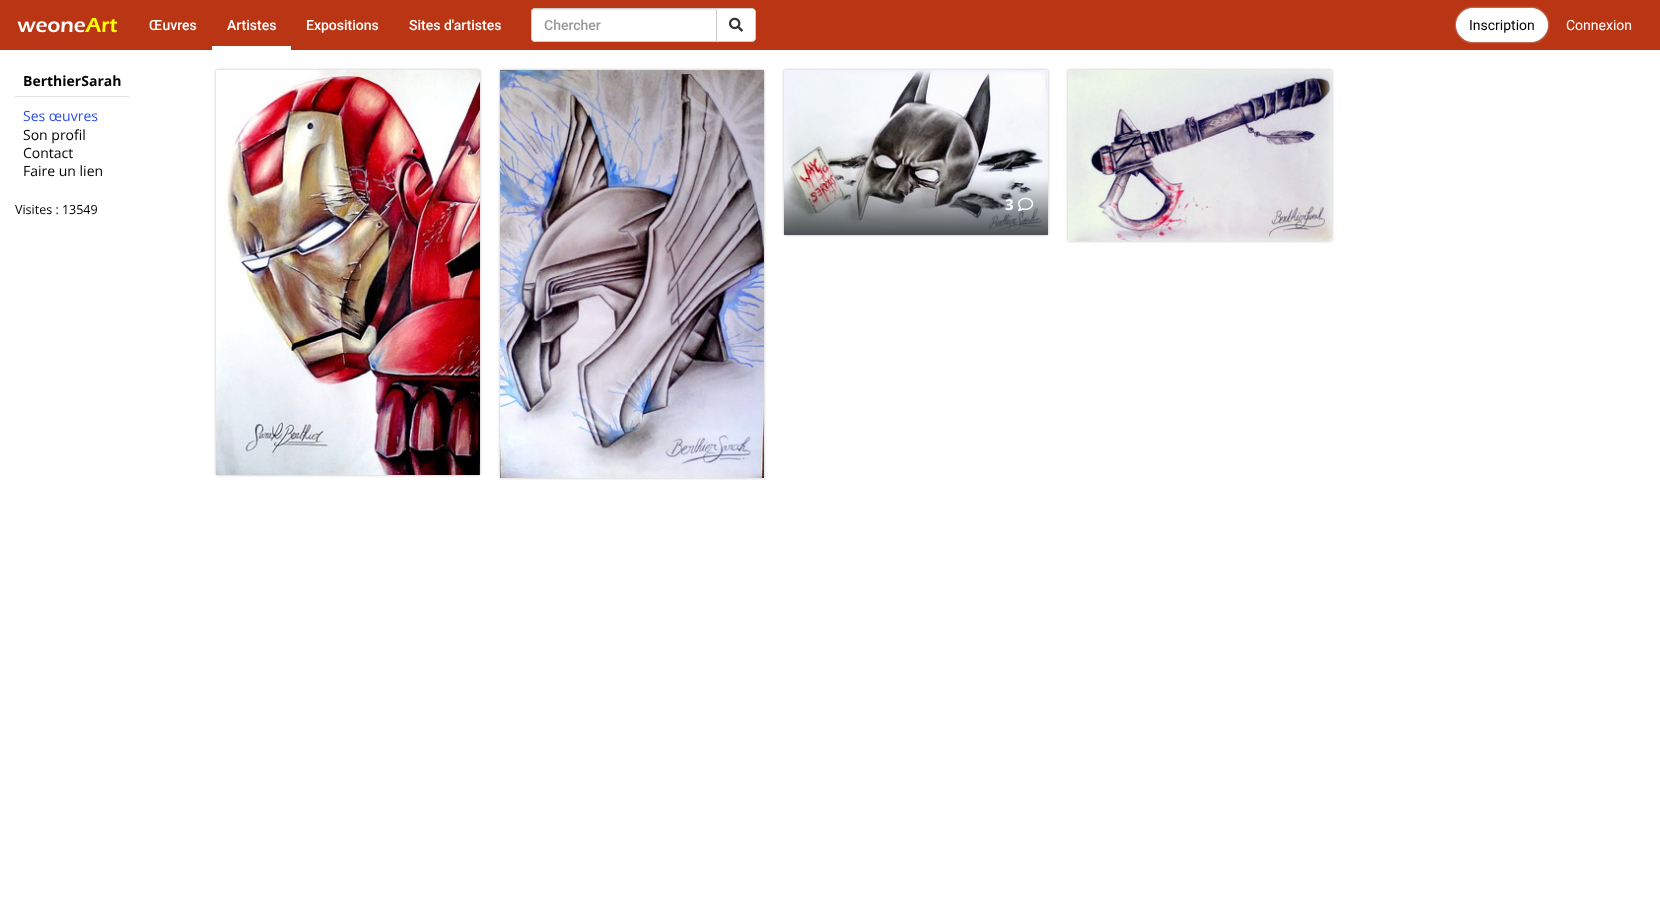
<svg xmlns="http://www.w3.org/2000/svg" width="1660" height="911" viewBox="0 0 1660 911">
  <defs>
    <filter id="blur1" x="-50%" y="-200%" width="200%" height="500%"><feGaussianBlur stdDeviation="1"/></filter>
    <filter id="blur2" x="-50%" y="-200%" width="200%" height="500%"><feGaussianBlur stdDeviation="1.5"/></filter>
  </defs>
  <rect width="100%" height="100%" fill="#ffffff"/>
  <rect x="0" y="0" width="1660" height="50" fill="#b93513"/>
  <image x="17" y="18" width="100" height="15" href="img1.png"/>
  <text x="149" y="30" font-family="Roboto" font-size="14" font-weight="500" fill="#ffffff">Œuvres</text>
  <text x="227" y="30" font-family="Roboto" font-size="14" font-weight="500" fill="#ffffff">Artistes</text>
  <rect x="212" y="46" width="79" height="4" fill="#ffffff"/>
  <text x="306" y="30" font-family="Roboto" font-size="14" font-weight="500" fill="#ffffff">Expositions</text>
  <text x="409" y="30" font-family="Roboto" font-size="14" font-weight="500" fill="#ffffff">Sites d'artistes</text>
  <path d="M535 8H717V42H535C533 42 531 40 531 38V12C531 10 533 8 535 8Z" fill="#ffffff"/>
  <path d="M535 10H716V9H534C532 10 532 11 532 13C532 11 533 10 535 10Z" fill="#ececec"/>
  <path d="M535 8.5H716.5V41.5H535C533 41.5 531.5 40 531.5 38V12C531.5 10 533 8.5 535 8.5Z" fill="none" stroke="#cccccc"/>
  <text x="544" y="30" font-family="Roboto" font-size="14" font-weight="500" fill="#999999">Chercher</text>
  <path d="M716.5 8.5H752C754 8.5 755.5 10 755.5 12V38C755.5 40 754 41.5 752 41.5H716.5Z" fill="#ffffff" stroke="#cccccc"/>
  <image x="729" y="17" width="14" height="15" href="img2.png"/>
  <rect x="1456" y="8" width="92" height="34" rx="17" fill="#cccccc" filter="url(#blur1)"/>
  <rect x="1456.5" y="8.5" width="91" height="33" rx="16.5" fill="#ffffff" stroke="#ffffff"/>
  <text x="1469" y="30" font-family="Roboto" font-size="14" fill="#000000">Inscription</text>
  <text x="1566" y="30" font-family="Roboto" font-size="14" fill="#ffffff">Connexion</text>
  <rect x="15" y="96" width="114" height="1" fill="#e2e2e2"/>
  <text x="23" y="86" font-family="Open Sans" font-size="14" font-weight="bold" fill="#000000">BerthierSarah</text>
  <text x="23" y="121" font-family="Open Sans" font-size="14" fill="#2c4ce5">Ses œuvres</text>
  <text x="23" y="140" font-family="Open Sans" font-size="14" fill="#000000">Son profil</text>
  <text x="23" y="158" font-family="Open Sans" font-size="14" fill="#000000">Contact</text>
  <text x="23" y="176" font-family="Open Sans" font-size="14" fill="#000000">Faire un lien</text>
  <text x="15" y="214" font-family="Open Sans" font-size="12.5" fill="#000000">Visites : 13549</text>
  <rect x="216" y="70" width="264" height="405" fill="#bbbbbb" filter="url(#blur2)"/>
  <image x="216" y="70" width="264" height="405" href="img3.png"/>
  <rect x="500" y="70" width="264" height="408" fill="#bbbbbb" filter="url(#blur2)"/>
  <image x="500" y="70" width="264" height="408" href="img4.png"/>
  <rect x="784" y="70" width="264" height="165" fill="#bbbbbb" filter="url(#blur2)"/>
  <image x="784" y="70" width="264" height="165" href="img5.png"/>
  <text x="1005" y="210" font-family="Open Sans" font-size="15" font-weight="bold" fill="#ffffff">3</text>
  <image x="1018" y="197" width="16" height="14" href="img6.png"/>
  <rect x="1068" y="70" width="264" height="171" fill="#bbbbbb" filter="url(#blur2)"/>
  <image x="1068" y="70" width="264" height="171" href="img7.png"/>
</svg>
